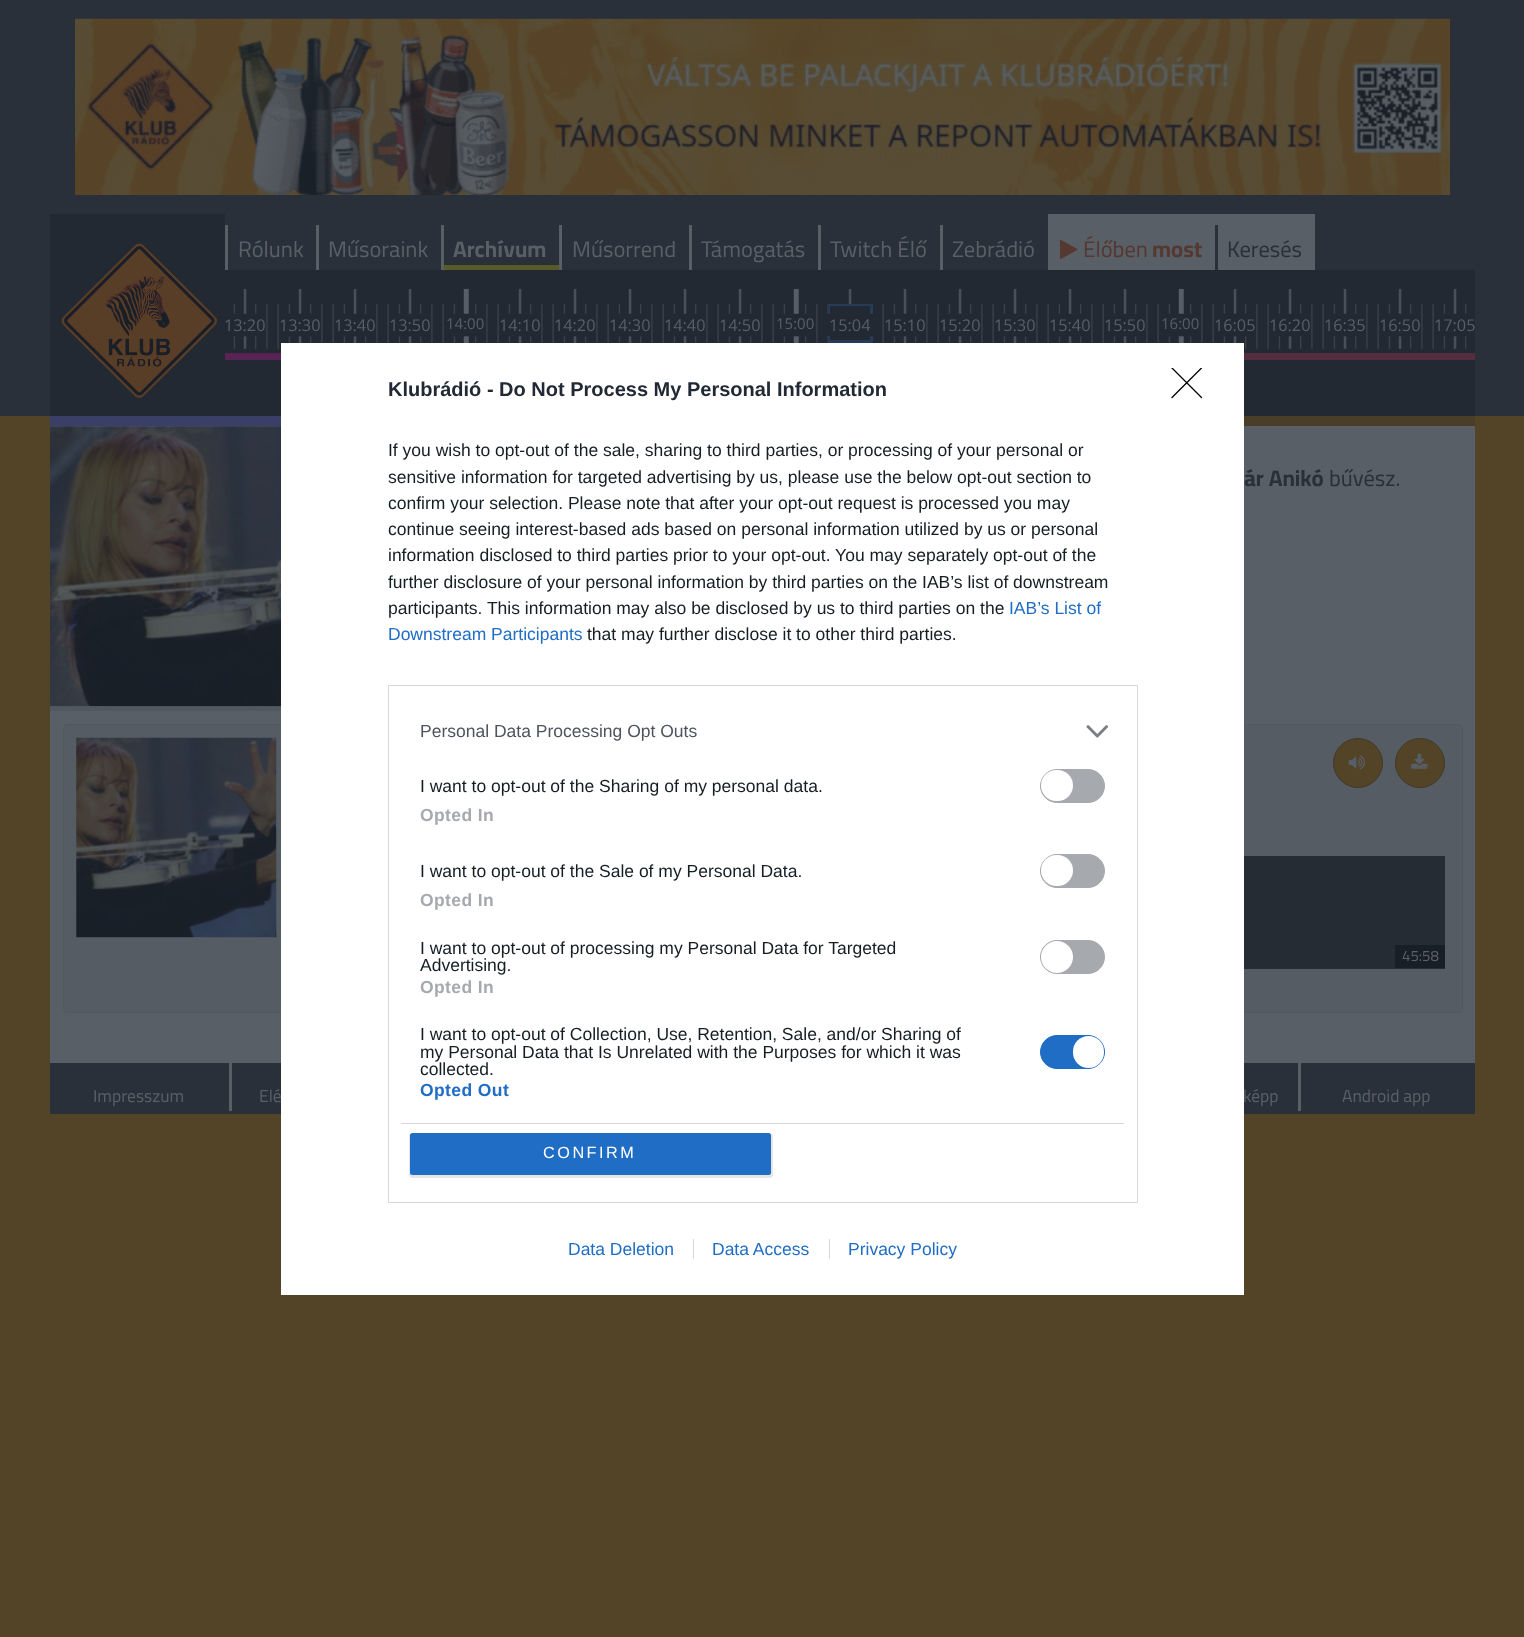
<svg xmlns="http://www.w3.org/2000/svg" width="1524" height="1637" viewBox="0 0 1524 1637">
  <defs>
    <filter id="blur1" x="-50%" y="-200%" width="200%" height="500%"><feGaussianBlur stdDeviation="0.5"/></filter>
    <clipPath id="clip1"><rect x="1171" y="368" width="32" height="31"/></clipPath>
  </defs>
  <rect width="100%" height="100%" fill="#534327"/>
  <rect x="0" y="0" width="1524" height="416" fill="#293039"/>
  <image x="75" y="18" width="1375" height="177" href="img1.png"/>
  <rect x="50" y="214" width="1425" height="202" fill="#222933"/>
  <image x="61" y="243" width="156" height="155" href="img2.png"/>
  <rect x="225" y="214" width="1250" height="56" fill="#293039"/>
  <rect x="225" y="225" width="3" height="45" fill="#595f67"/>
  <text x="238" y="257" font-family="Cairo" font-size="22.5" fill="#595f67">Rólunk</text>
  <rect x="316" y="225" width="3" height="45" fill="#595f67"/>
  <text x="328" y="257" font-family="Cairo" font-size="22.5" fill="#595f67">Műsoraink</text>
  <rect x="441" y="265" width="118" height="5" fill="#595b27"/>
  <rect x="441" y="225" width="3" height="45" fill="#595f67"/>
  <text x="453" y="257" font-family="Cairo" font-size="22.5" font-weight="bold" fill="#595f67">Archívum</text>
  <rect x="559" y="225" width="3" height="45" fill="#595f67"/>
  <text x="572" y="257" font-family="Cairo" font-size="22.5" fill="#595f67">Műsorrend</text>
  <rect x="689" y="225" width="3" height="45" fill="#595f67"/>
  <text x="701" y="257" font-family="Cairo" font-size="22.5" fill="#595f67">Támogatás</text>
  <rect x="818" y="225" width="3" height="45" fill="#595f67"/>
  <text x="830" y="257" font-family="Cairo" font-size="22.5" fill="#595f67">Twitch Élő</text>
  <rect x="940" y="225" width="3" height="45" fill="#595f67"/>
  <text x="952" y="257" font-family="Cairo" font-size="22.5" fill="#595f67">Zebrádió</text>
  <rect x="1048" y="214" width="267" height="56" fill="#595f67"/>
  <image x="1060" y="239" width="18" height="21" href="img3.png"/>
  <text x="1083" y="257" font-family="Cairo" font-size="22.5" fill="#553830">Élőben</text>
  <text x="1152" y="257" font-family="Cairo" font-size="22.5" font-weight="bold" fill="#553830">most</text>
  <rect x="1215" y="225" width="3" height="45" fill="#293039"/>
  <text x="1227" y="257" font-family="Cairo" font-size="22.5" fill="#293039">Keresés</text>
  <image x="233" y="288" width="35" height="61" href="img4.png"/>
  <text x="224" y="331" font-family="Open Sans" font-size="16.25" fill="#595f67">13:20</text>
  <image x="277" y="288" width="46" height="61" href="img5.png"/>
  <text x="279" y="331" font-family="Open Sans" font-size="16.25" fill="#595f67">13:30</text>
  <image x="332" y="288" width="46" height="55" href="img6.png"/>
  <text x="334" y="331" font-family="Open Sans" font-size="16.25" fill="#595f67">13:40</text>
  <image x="387" y="288" width="46" height="55" href="img6.png"/>
  <text x="389" y="331" font-family="Open Sans" font-size="16.25" fill="#595f67">13:50</text>
  <image x="442" y="288" width="46" height="55" href="img7.png"/>
  <text x="446" y="329" font-family="Open Sans" font-size="15" fill="#595f67">14:00</text>
  <image x="497" y="288" width="46" height="55" href="img6.png"/>
  <text x="499" y="331" font-family="Open Sans" font-size="16.25" fill="#595f67">14:10</text>
  <image x="552" y="288" width="46" height="55" href="img6.png"/>
  <text x="554" y="331" font-family="Open Sans" font-size="16.25" fill="#595f67">14:20</text>
  <image x="607" y="288" width="46" height="55" href="img6.png"/>
  <text x="609" y="331" font-family="Open Sans" font-size="16.25" fill="#595f67">14:30</text>
  <image x="662" y="288" width="46" height="55" href="img6.png"/>
  <text x="664" y="331" font-family="Open Sans" font-size="16.25" fill="#595f67">14:40</text>
  <image x="717" y="288" width="46" height="55" href="img6.png"/>
  <text x="719" y="331" font-family="Open Sans" font-size="16.25" fill="#595f67">14:50</text>
  <image x="772" y="288" width="46" height="55" href="img7.png"/>
  <text x="776" y="329" font-family="Open Sans" font-size="15" fill="#595f67">15:00</text>
  <image x="827" y="288" width="46" height="55" href="img6.png"/>
  <rect x="829.5" y="305.5" width="42" height="36" fill="none" stroke="#273a57" stroke-width="3"/>
  <rect x="830" y="306" width="40" height="34" fill="#222933"/>
  <rect x="827" y="314" width="46" height="22" fill="#222933"/>
  <text x="829" y="331" font-family="Open Sans" font-size="16.25" fill="#595f67">15:04</text>
  <image x="882" y="288" width="46" height="55" href="img6.png"/>
  <text x="884" y="331" font-family="Open Sans" font-size="16.25" fill="#595f67">15:10</text>
  <image x="937" y="288" width="46" height="55" href="img6.png"/>
  <text x="939" y="331" font-family="Open Sans" font-size="16.25" fill="#595f67">15:20</text>
  <image x="992" y="288" width="46" height="55" href="img6.png"/>
  <text x="994" y="331" font-family="Open Sans" font-size="16.25" fill="#595f67">15:30</text>
  <image x="1047" y="288" width="46" height="55" href="img6.png"/>
  <text x="1049" y="331" font-family="Open Sans" font-size="16.25" fill="#595f67">15:40</text>
  <image x="1102" y="288" width="46" height="55" href="img6.png"/>
  <text x="1104" y="331" font-family="Open Sans" font-size="16.25" fill="#595f67">15:50</text>
  <image x="1157" y="288" width="46" height="55" href="img7.png"/>
  <text x="1161" y="329" font-family="Open Sans" font-size="15" fill="#595f67">16:00</text>
  <image x="1212" y="288" width="46" height="61" href="img5.png"/>
  <text x="1214" y="331" font-family="Open Sans" font-size="16.25" fill="#595f67">16:05</text>
  <image x="1267" y="288" width="46" height="61" href="img5.png"/>
  <text x="1269" y="331" font-family="Open Sans" font-size="16.25" fill="#595f67">16:20</text>
  <image x="1322" y="288" width="46" height="61" href="img5.png"/>
  <text x="1324" y="331" font-family="Open Sans" font-size="16.25" fill="#595f67">16:35</text>
  <image x="1377" y="288" width="46" height="61" href="img5.png"/>
  <text x="1379" y="331" font-family="Open Sans" font-size="16.25" fill="#595f67">16:50</text>
  <image x="1432" y="288" width="35" height="61" href="img8.png"/>
  <text x="1434" y="331" font-family="Open Sans" font-size="16.25" fill="#595f67">17:05</text>
  <rect x="225" y="353" width="56" height="7" fill="#592354"/>
  <rect x="1244" y="353" width="231" height="7" fill="#542d3f"/>
  <rect x="50" y="426" width="1425" height="637" fill="#595f67"/>
  <rect x="63.5" y="724.5" width="1399" height="288" rx="4.5" fill="#565c64" stroke="#525860"/>
  <rect x="50" y="1063" width="1425" height="51" fill="#293039"/>
  <text x="259" y="1102" font-family="Cairo" font-size="17.5" fill="#595f67">Elé</text>
  <text x="1243" y="1102" font-family="Cairo" font-size="17.5" fill="#595f67">képp</text>
  <rect x="281" y="343" width="963" height="952" fill="#ffffff"/>
  <text x="388" y="396" font-family="Liberation Sans" font-size="20" font-weight="bold" fill="#212934">Klubrádió - Do Not Process My Personal Information</text>
  <text x="388" y="456" font-family="Liberation Sans" font-size="17.5" fill="#141e23">If you wish to opt-out of the sale, sharing to third parties, or processing of your personal or</text>
  <text x="388" y="483" font-family="Liberation Sans" font-size="17.5" fill="#141e23">sensitive information for targeted advertising by us, please use the below opt-out section to</text>
  <text x="388" y="509" font-family="Liberation Sans" font-size="17.5" fill="#141e23">confirm your selection. Please note that after your opt-out request is processed you may</text>
  <text x="388" y="535" font-family="Liberation Sans" font-size="17.5" fill="#141e23">continue seeing interest-based ads based on personal information utilized by us or personal</text>
  <text x="388" y="561" font-family="Liberation Sans" font-size="17.5" fill="#141e23">information disclosed to third parties prior to your opt-out. You may separately opt-out of the</text>
  <text x="388" y="588" font-family="Liberation Sans" font-size="17.5" fill="#141e23">further disclosure of your personal information by third parties on the IAB’s list of downstream</text>
  <text x="388" y="614" font-family="Liberation Sans" font-size="17.5" fill="#141e23">participants. This information may also be disclosed by us to third parties on the</text>
  <text x="1009" y="614" font-family="Liberation Sans" font-size="17.5" fill="#206dc5">IAB’s List of</text>
  <text x="388" y="640" font-family="Liberation Sans" font-size="17.5" fill="#206dc5">Downstream Participants</text>
  <text x="587" y="640" font-family="Liberation Sans" font-size="17.5" fill="#141e23">that may further disclose it to other third parties.</text>
  <rect x="388.5" y="685.5" width="749" height="517" fill="none" stroke="#d8d8d8"/>
  <rect x="401" y="1123" width="723" height="1" fill="#d8d8d8"/>
  <text x="420" y="737" font-family="Liberation Sans" font-size="17.5" fill="#4d545d">Personal Data Processing Opt Outs</text>
  <image x="1086" y="725" width="23" height="13" href="img9.png"/>
  <text x="420" y="792" font-family="Liberation Sans" font-size="17.5" fill="#141e23">I want to opt-out of the Sharing of my personal data.</text>
  <rect x="1040.5" y="769.5" width="64" height="33" rx="16.5" fill="#a6a9ae" stroke="#a6a9ae"/>
  <rect x="1041" y="770" width="32" height="31" rx="15.5" fill="#ffffff"/>
  <text x="420" y="821" font-family="Liberation Sans" font-size="17.5" font-weight="bold" letter-spacing="0.4" fill="#a6a9ae">Opted In</text>
  <text x="420" y="877" font-family="Liberation Sans" font-size="17.5" fill="#141e23">I want to opt-out of the Sale of my Personal Data.</text>
  <rect x="1040.5" y="854.5" width="64" height="33" rx="16.5" fill="#a6a9ae" stroke="#a6a9ae"/>
  <rect x="1041" y="855" width="32" height="31" rx="15.5" fill="#ffffff"/>
  <text x="420" y="906" font-family="Liberation Sans" font-size="17.5" font-weight="bold" letter-spacing="0.4" fill="#a6a9ae">Opted In</text>
  <text x="420" y="954" font-family="Liberation Sans" font-size="17.5" fill="#141e23">I want to opt-out of processing my Personal Data for Targeted</text>
  <text x="420" y="971" font-family="Liberation Sans" font-size="17.5" fill="#141e23">Advertising.</text>
  <rect x="1040.5" y="940.5" width="64" height="33" rx="16.5" fill="#a6a9ae" stroke="#a6a9ae"/>
  <circle cx="1057" cy="957" r="16" fill="#ffffff"/>
  <text x="420" y="993" font-family="Liberation Sans" font-size="17.5" font-weight="bold" letter-spacing="0.4" fill="#a6a9ae">Opted In</text>
  <text x="420" y="1040" font-family="Liberation Sans" font-size="17.5" fill="#141e23">I want to opt-out of Collection, Use, Retention, Sale, and/or Sharing of</text>
  <text x="420" y="1058" font-family="Liberation Sans" font-size="17.5" fill="#141e23">my Personal Data that Is Unrelated with the Purposes for which it was</text>
  <text x="420" y="1075" font-family="Liberation Sans" font-size="17.5" fill="#141e23">collected.</text>
  <rect x="1040.5" y="1035.5" width="64" height="33" rx="16.5" fill="#206dc5" stroke="#206dc5"/>
  <rect x="1073" y="1036" width="31" height="32" rx="15.5" fill="#ffffff"/>
  <text x="420" y="1096" font-family="Liberation Sans" font-size="17.5" font-weight="bold" letter-spacing="0.4" fill="#206dc5">Opted Out</text>
  <rect x="409" y="1133" width="364" height="45" rx="4" fill="#000000" fill-opacity="0.1" filter="url(#blur1)"/>
  <rect x="410" y="1133" width="361" height="42" rx="2.5" fill="#206dc5"/>
  <text x="543" y="1158" font-family="Liberation Sans" font-size="16.25" letter-spacing="2.5" fill="#ffffff">CONFIRM</text>
  <g clip-path="url(#clip1)">
    <path d="M1172 368L1201.5 397.5M1201.5 368L1172 397.5" fill="none" stroke="#000000" stroke-width="1.3" stroke-linecap="round" stroke-linejoin="round"/>
  </g>
  <text x="568" y="1255" font-family="Liberation Sans" font-size="17.5" fill="#206dc5">Data Deletion</text>
  <text x="712" y="1255" font-family="Liberation Sans" font-size="17.5" fill="#206dc5">Data Access</text>
  <rect x="693" y="1239" width="1" height="20" fill="#d8d8d8"/>
  <text x="848" y="1255" font-family="Liberation Sans" font-size="17.5" fill="#206dc5">Privacy Policy</text>
  <rect x="829" y="1239" width="1" height="20" fill="#d8d8d8"/>
  <rect x="50" y="426" width="231" height="285" fill="#525860"/>
  <rect x="50" y="416" width="231" height="10" fill="#393f67"/>
  <image x="50" y="426" width="231" height="281" href="img10.png"/>
  <rect x="1244" y="416" width="231" height="10" fill="#4a3e29"/>
  <text x="1244" y="486" font-family="Cairo" font-size="22.5" font-weight="bold" fill="#293039">ár Anikó</text>
  <text x="1329" y="486" font-family="Cairo" font-size="22.5" fill="#293039">bűvész.</text>
  <image x="76" y="737" width="201" height="201" href="img11.png"/>
  <circle cx="1358" cy="763" r="24.5" fill="#534327" stroke="#423927"/>
  <image x="1348" y="755" width="17" height="15" href="img12.png"/>
  <circle cx="1420" cy="763" r="24.5" fill="#534327" stroke="#423927"/>
  <image x="1411" y="753" width="17" height="16" href="img13.png"/>
  <rect x="1244" y="856" width="201" height="113" fill="#262c34"/>
  <rect x="1395" y="945" width="50" height="23" fill="#191f27"/>
  <text x="1402" y="961" font-family="Cairo" font-size="15" fill="#595f67">45:58</text>
  <text x="93" y="1102" font-family="Cairo" font-size="17.5" fill="#595f67">Impresszum</text>
  <rect x="229" y="1063" width="3" height="48" fill="#595f67"/>
  <rect x="1298" y="1063" width="3" height="48" fill="#595f67"/>
  <text x="1342" y="1102" font-family="Cairo" font-size="17.5" fill="#595f67">Android app</text>
</svg>
